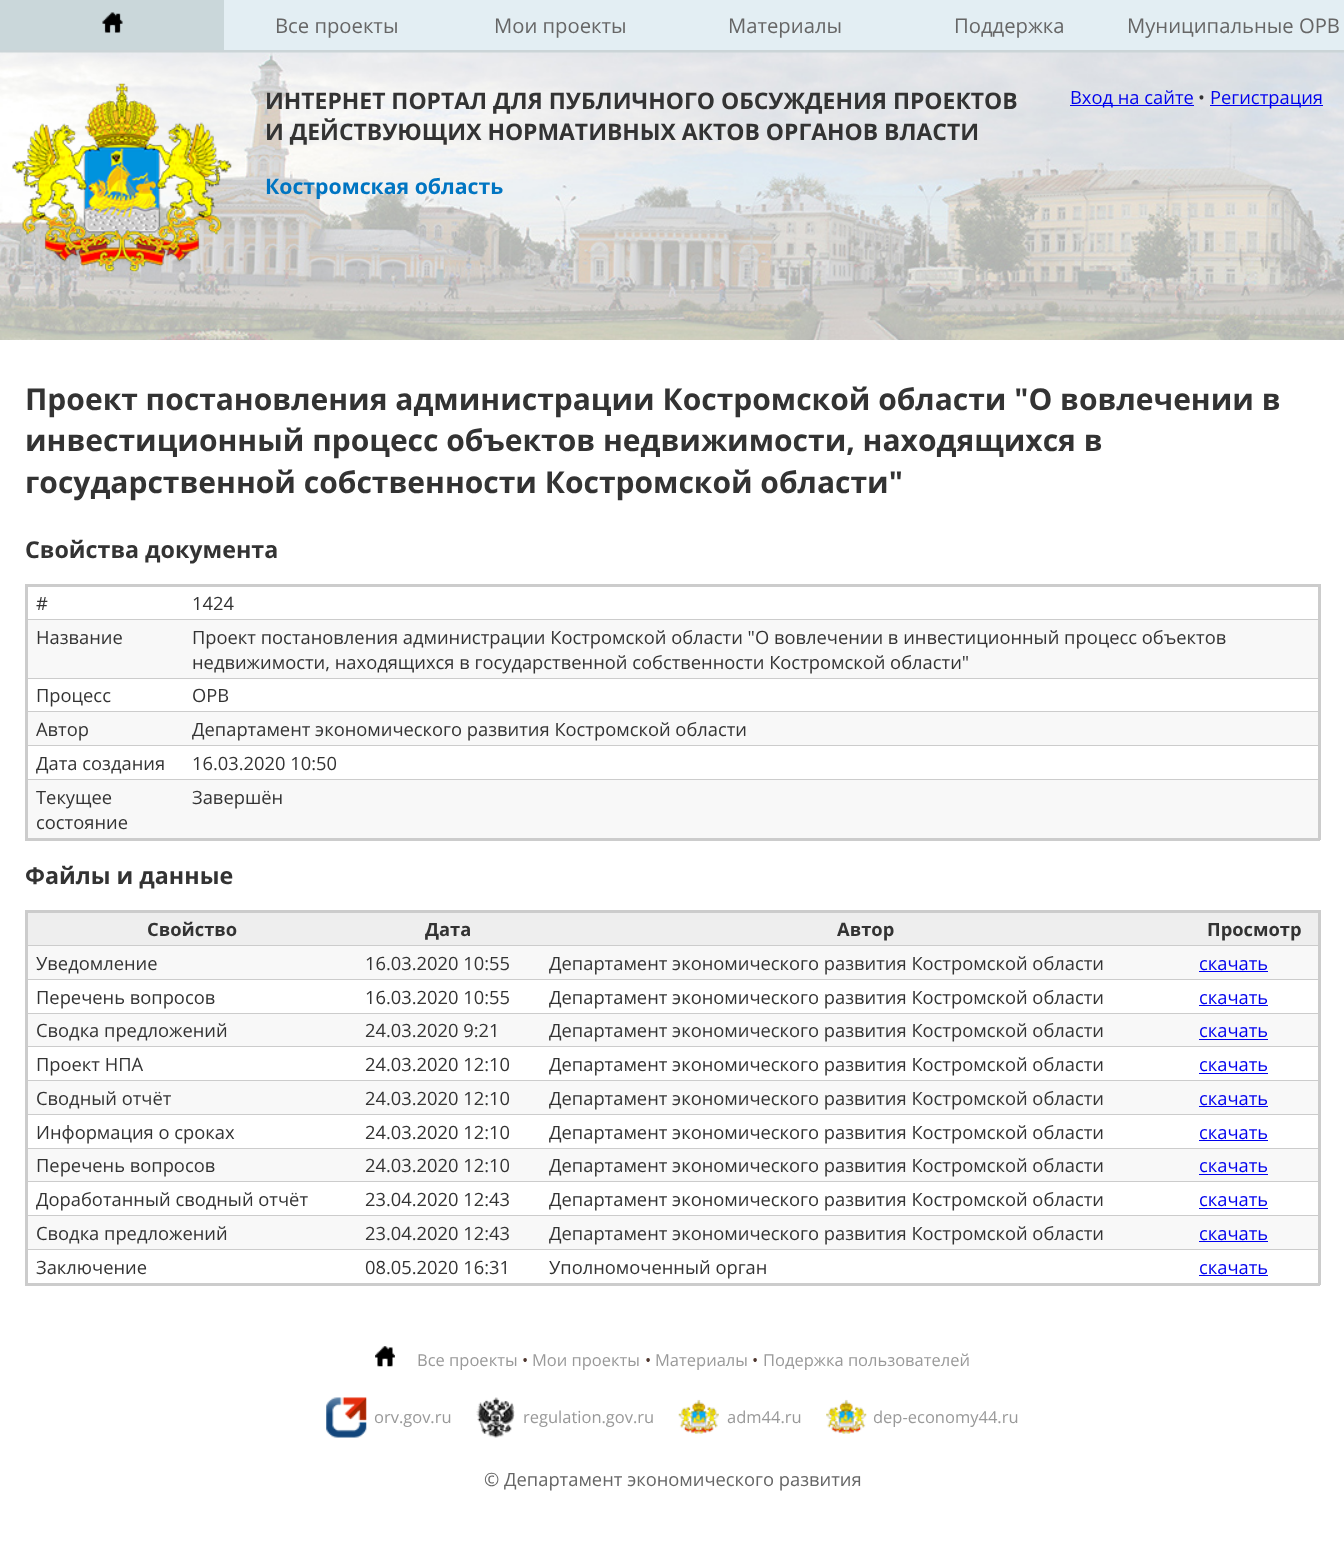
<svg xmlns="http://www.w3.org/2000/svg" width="1344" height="1558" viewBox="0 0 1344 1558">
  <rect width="100%" height="100%" fill="#ffffff"/>
  <rect x="224" y="0" width="1120" height="50" fill="#e3eef3"/>
  <rect x="0" y="50" width="1344" height="3" fill="#cbd4d7"/>
  <rect x="0" y="0" width="224" height="50" fill="#cad7da"/>
  <image x="102" y="12" width="21" height="21" href="img1.png"/>
  <text x="275" y="33" font-family="Open Sans" font-size="20.25" fill="#666666">Все проекты</text>
  <text x="494" y="33" font-family="Open Sans" font-size="20.25" fill="#666666">Мои проекты</text>
  <text x="728" y="33" font-family="Open Sans" font-size="20.25" fill="#666666">Материалы</text>
  <text x="954" y="33" font-family="Open Sans" font-size="20.25" fill="#666666">Поддержка</text>
  <text x="1127" y="33" font-family="Open Sans" font-size="20.25" fill="#666666">Муниципальные ОРВ</text>
  <image x="0" y="52" width="1344" height="288" href="img2.png"/>
  <image x="12" y="83" width="220" height="189" href="img3.png"/>
  <text x="265" y="109" font-family="Open Sans" font-size="22.9" font-weight="bold" fill="#333333">ИНТЕРНЕТ ПОРТАЛ ДЛЯ ПУБЛИЧНОГО ОБСУЖДЕНИЯ ПРОЕКТОВ</text>
  <text x="265" y="140" font-family="Open Sans" font-size="22.9" font-weight="bold" fill="#333333">И ДЕЙСТВУЮЩИХ НОРМАТИВНЫХ АКТОВ ОРГАНОВ ВЛАСТИ</text>
  <text x="265" y="194" font-family="Open Sans" font-size="21.25" font-weight="bold" fill="#0075c2">Костромская область</text>
  <rect x="1070" y="105" width="124" height="1" fill="#0000ee"/>
  <text x="1070" y="104" font-family="Open Sans" font-size="18.33" fill="#0000ee">Вход на сайте</text>
  <text x="1198" y="104" font-family="Open Sans" font-size="18.33" fill="#333333">•</text>
  <rect x="1210" y="105" width="113" height="1" fill="#0000ee"/>
  <text x="1210" y="104" font-family="Open Sans" font-size="18.33" fill="#0000ee">Регистрация</text>
  <text x="25" y="410" font-family="Open Sans" font-size="30" font-weight="bold" fill="#333333">Проект постановления администрации Костромской области "О вовлечении в</text>
  <text x="25" y="451" font-family="Open Sans" font-size="30" font-weight="bold" fill="#333333">инвестиционный процесс объектов недвижимости, находящихся в</text>
  <text x="25" y="493" font-family="Open Sans" font-size="30" font-weight="bold" fill="#333333">государственной собственности Костромской области"</text>
  <text x="25" y="558" font-family="Open Sans" font-size="23.25" font-weight="bold" fill="#333333">Свойства документа</text>
  <rect x="25" y="584" width="1295" height="3" fill="#cccccc"/>
  <rect x="26" y="619" width="1294" height="1" fill="#cccccc"/>
  <rect x="26" y="678" width="1294" height="1" fill="#cccccc"/>
  <rect x="26" y="711" width="1294" height="1" fill="#cccccc"/>
  <rect x="26" y="745" width="1294" height="1" fill="#cccccc"/>
  <rect x="26" y="779" width="1294" height="1" fill="#cccccc"/>
  <rect x="1318" y="584" width="3" height="256" fill="#cccccc"/>
  <rect x="25" y="838" width="1295" height="3" fill="#cccccc"/>
  <rect x="25" y="584" width="3" height="256" fill="#cccccc"/>
  <text x="36" y="610" font-family="Open Sans" font-size="18.33" fill="#333333">#</text>
  <text x="192" y="610" font-family="Open Sans" font-size="18.33" fill="#333333">1424</text>
  <rect x="28" y="620" width="1290" height="58" fill="#f8f8f8"/>
  <text x="36" y="644" font-family="Open Sans" font-size="18.33" fill="#333333">Название</text>
  <text x="192" y="644" font-family="Open Sans" font-size="18.33" fill="#333333">Проект постановления администрации Костромской области "О вовлечении в инвестиционный процесс объектов</text>
  <text x="192" y="669" font-family="Open Sans" font-size="18.33" fill="#333333">недвижимости, находящихся в государственной собственности Костромской области"</text>
  <text x="36" y="702" font-family="Open Sans" font-size="18.33" fill="#333333">Процесс</text>
  <text x="192" y="702" font-family="Open Sans" font-size="18.33" fill="#333333">ОРВ</text>
  <rect x="28" y="712" width="1290" height="33" fill="#f8f8f8"/>
  <text x="36" y="736" font-family="Open Sans" font-size="18.33" fill="#333333">Автор</text>
  <text x="192" y="736" font-family="Open Sans" font-size="18.33" fill="#333333">Департамент экономического развития Костромской области</text>
  <text x="36" y="770" font-family="Open Sans" font-size="18.33" fill="#333333">Дата создания</text>
  <text x="192" y="770" font-family="Open Sans" font-size="18.33" fill="#333333">16.03.2020 10:50</text>
  <rect x="28" y="780" width="1290" height="58" fill="#f8f8f8"/>
  <text x="36" y="804" font-family="Open Sans" font-size="18.33" fill="#333333">Текущее</text>
  <text x="36" y="829" font-family="Open Sans" font-size="18.33" fill="#333333">состояние</text>
  <text x="192" y="804" font-family="Open Sans" font-size="18.33" fill="#333333">Завершён</text>
  <text x="25" y="884" font-family="Open Sans" font-size="23.25" font-weight="bold" fill="#333333">Файлы и данные</text>
  <rect x="25" y="910" width="1295" height="3" fill="#cccccc"/>
  <rect x="26" y="945" width="1294" height="1" fill="#cccccc"/>
  <rect x="26" y="979" width="1294" height="1" fill="#cccccc"/>
  <rect x="26" y="1013" width="1294" height="1" fill="#cccccc"/>
  <rect x="26" y="1046" width="1294" height="1" fill="#cccccc"/>
  <rect x="26" y="1080" width="1294" height="1" fill="#cccccc"/>
  <rect x="26" y="1114" width="1294" height="1" fill="#cccccc"/>
  <rect x="26" y="1148" width="1294" height="1" fill="#cccccc"/>
  <rect x="26" y="1181" width="1294" height="1" fill="#cccccc"/>
  <rect x="26" y="1215" width="1294" height="1" fill="#cccccc"/>
  <rect x="26" y="1249" width="1294" height="1" fill="#cccccc"/>
  <rect x="1318" y="910" width="3" height="375" fill="#cccccc"/>
  <rect x="25" y="1283" width="1295" height="3" fill="#cccccc"/>
  <rect x="25" y="910" width="3" height="375" fill="#cccccc"/>
  <rect x="28" y="913" width="1290" height="32" fill="#eeeeee"/>
  <text x="147" y="936" font-family="Open Sans" font-size="18.33" font-weight="bold" fill="#333333">Свойство</text>
  <text x="425" y="936" font-family="Open Sans" font-size="18.33" font-weight="bold" fill="#333333">Дата</text>
  <text x="837" y="936" font-family="Open Sans" font-size="18.33" font-weight="bold" fill="#333333">Автор</text>
  <text x="1207" y="936" font-family="Open Sans" font-size="18.33" font-weight="bold" fill="#333333">Просмотр</text>
  <rect x="28" y="946" width="1290" height="33" fill="#f8f8f8"/>
  <text x="36" y="970" font-family="Open Sans" font-size="18.33" fill="#333333">Уведомление</text>
  <text x="365" y="970" font-family="Open Sans" font-size="18.33" fill="#333333">16.03.2020 10:55</text>
  <text x="549" y="970" font-family="Open Sans" font-size="18.33" fill="#333333">Департамент экономического развития Костромской области</text>
  <text x="1199" y="970" font-family="Open Sans" font-size="18.33" fill="#0000ee">скачать</text>
  <rect x="1199" y="971" width="69" height="1" fill="#0000ee"/>
  <text x="36" y="1004" font-family="Open Sans" font-size="18.33" fill="#333333">Перечень вопросов</text>
  <text x="365" y="1004" font-family="Open Sans" font-size="18.33" fill="#333333">16.03.2020 10:55</text>
  <text x="549" y="1004" font-family="Open Sans" font-size="18.33" fill="#333333">Департамент экономического развития Костромской области</text>
  <text x="1199" y="1004" font-family="Open Sans" font-size="18.33" fill="#0000ee">скачать</text>
  <rect x="1199" y="1005" width="69" height="1" fill="#0000ee"/>
  <rect x="28" y="1014" width="1290" height="32" fill="#f8f8f8"/>
  <text x="36" y="1037" font-family="Open Sans" font-size="18.33" fill="#333333">Сводка предложений</text>
  <text x="365" y="1037" font-family="Open Sans" font-size="18.33" fill="#333333">24.03.2020 9:21</text>
  <text x="549" y="1037" font-family="Open Sans" font-size="18.33" fill="#333333">Департамент экономического развития Костромской области</text>
  <text x="1199" y="1037" font-family="Open Sans" font-size="18.33" fill="#0000ee">скачать</text>
  <rect x="1199" y="1039" width="69" height="1" fill="#0000ee"/>
  <text x="36" y="1071" font-family="Open Sans" font-size="18.33" fill="#333333">Проект НПА</text>
  <text x="365" y="1071" font-family="Open Sans" font-size="18.33" fill="#333333">24.03.2020 12:10</text>
  <text x="549" y="1071" font-family="Open Sans" font-size="18.33" fill="#333333">Департамент экономического развития Костромской области</text>
  <text x="1199" y="1071" font-family="Open Sans" font-size="18.33" fill="#0000ee">скачать</text>
  <rect x="1199" y="1073" width="69" height="1" fill="#0000ee"/>
  <rect x="28" y="1081" width="1290" height="33" fill="#f8f8f8"/>
  <text x="36" y="1105" font-family="Open Sans" font-size="18.33" fill="#333333">Сводный отчёт</text>
  <text x="365" y="1105" font-family="Open Sans" font-size="18.33" fill="#333333">24.03.2020 12:10</text>
  <text x="549" y="1105" font-family="Open Sans" font-size="18.33" fill="#333333">Департамент экономического развития Костромской области</text>
  <text x="1199" y="1105" font-family="Open Sans" font-size="18.33" fill="#0000ee">скачать</text>
  <rect x="1199" y="1106" width="69" height="1" fill="#0000ee"/>
  <text x="36" y="1139" font-family="Open Sans" font-size="18.33" fill="#333333">Информация о сроках</text>
  <text x="365" y="1139" font-family="Open Sans" font-size="18.33" fill="#333333">24.03.2020 12:10</text>
  <text x="549" y="1139" font-family="Open Sans" font-size="18.33" fill="#333333">Департамент экономического развития Костромской области</text>
  <text x="1199" y="1139" font-family="Open Sans" font-size="18.33" fill="#0000ee">скачать</text>
  <rect x="1199" y="1140" width="69" height="1" fill="#0000ee"/>
  <rect x="28" y="1149" width="1290" height="32" fill="#f8f8f8"/>
  <text x="36" y="1172" font-family="Open Sans" font-size="18.33" fill="#333333">Перечень вопросов</text>
  <text x="365" y="1172" font-family="Open Sans" font-size="18.33" fill="#333333">24.03.2020 12:10</text>
  <text x="549" y="1172" font-family="Open Sans" font-size="18.33" fill="#333333">Департамент экономического развития Костромской области</text>
  <text x="1199" y="1172" font-family="Open Sans" font-size="18.33" fill="#0000ee">скачать</text>
  <rect x="1199" y="1174" width="69" height="1" fill="#0000ee"/>
  <text x="36" y="1206" font-family="Open Sans" font-size="18.33" fill="#333333">Доработанный сводный отчёт</text>
  <text x="365" y="1206" font-family="Open Sans" font-size="18.33" fill="#333333">23.04.2020 12:43</text>
  <text x="549" y="1206" font-family="Open Sans" font-size="18.33" fill="#333333">Департамент экономического развития Костромской области</text>
  <text x="1199" y="1206" font-family="Open Sans" font-size="18.33" fill="#0000ee">скачать</text>
  <rect x="1199" y="1208" width="69" height="1" fill="#0000ee"/>
  <rect x="28" y="1216" width="1290" height="33" fill="#f8f8f8"/>
  <text x="36" y="1240" font-family="Open Sans" font-size="18.33" fill="#333333">Сводка предложений</text>
  <text x="365" y="1240" font-family="Open Sans" font-size="18.33" fill="#333333">23.04.2020 12:43</text>
  <text x="549" y="1240" font-family="Open Sans" font-size="18.33" fill="#333333">Департамент экономического развития Костромской области</text>
  <text x="1199" y="1240" font-family="Open Sans" font-size="18.33" fill="#0000ee">скачать</text>
  <rect x="1199" y="1241" width="69" height="1" fill="#0000ee"/>
  <text x="36" y="1274" font-family="Open Sans" font-size="18.33" fill="#333333">Заключение</text>
  <text x="365" y="1274" font-family="Open Sans" font-size="18.33" fill="#333333">08.05.2020 16:31</text>
  <text x="549" y="1274" font-family="Open Sans" font-size="18.33" fill="#333333">Уполномоченный орган</text>
  <text x="1199" y="1274" font-family="Open Sans" font-size="18.33" fill="#0000ee">скачать</text>
  <rect x="1199" y="1275" width="69" height="1" fill="#0000ee"/>
  <image x="375" y="1346" width="20" height="21" href="img4.png"/>
  <text x="417" y="1366" font-family="Open Sans" font-size="16.5" fill="#999999">Все проекты</text>
  <text x="522" y="1366" font-family="Open Sans" font-size="16.5" fill="#4f372f">•</text>
  <text x="532" y="1366" font-family="Open Sans" font-size="16.5" fill="#999999">Мои проекты</text>
  <text x="645" y="1366" font-family="Open Sans" font-size="16.5" fill="#4f372f">•</text>
  <text x="655" y="1366" font-family="Open Sans" font-size="16.5" fill="#999999">Материалы</text>
  <text x="752" y="1366" font-family="Open Sans" font-size="16.5" fill="#4f372f">•</text>
  <text x="763" y="1366" font-family="Open Sans" font-size="16.5" fill="#999999">Подержка пользователей</text>
  <image x="326" y="1397" width="41" height="41" href="img5.png"/>
  <text x="374" y="1423" font-family="Open Sans" font-size="16.5" fill="#999999">orv.gov.ru</text>
  <image x="476" y="1397" width="39" height="41" href="img6.png"/>
  <text x="523" y="1423" font-family="Open Sans" font-size="16.5" fill="#999999">regulation.gov.ru</text>
  <image x="678" y="1399" width="41" height="35" href="img7.png"/>
  <text x="727" y="1423" font-family="Open Sans" font-size="16.5" fill="#999999">adm44.ru</text>
  <image x="826" y="1399" width="41" height="35" href="img8.png"/>
  <text x="873" y="1423" font-family="Open Sans" font-size="16.5" fill="#999999">dep-economy44.ru</text>
  <text x="484" y="1486" font-family="Open Sans" font-size="18.33" fill="#666666">© Департамент экономического развития</text>
</svg>
